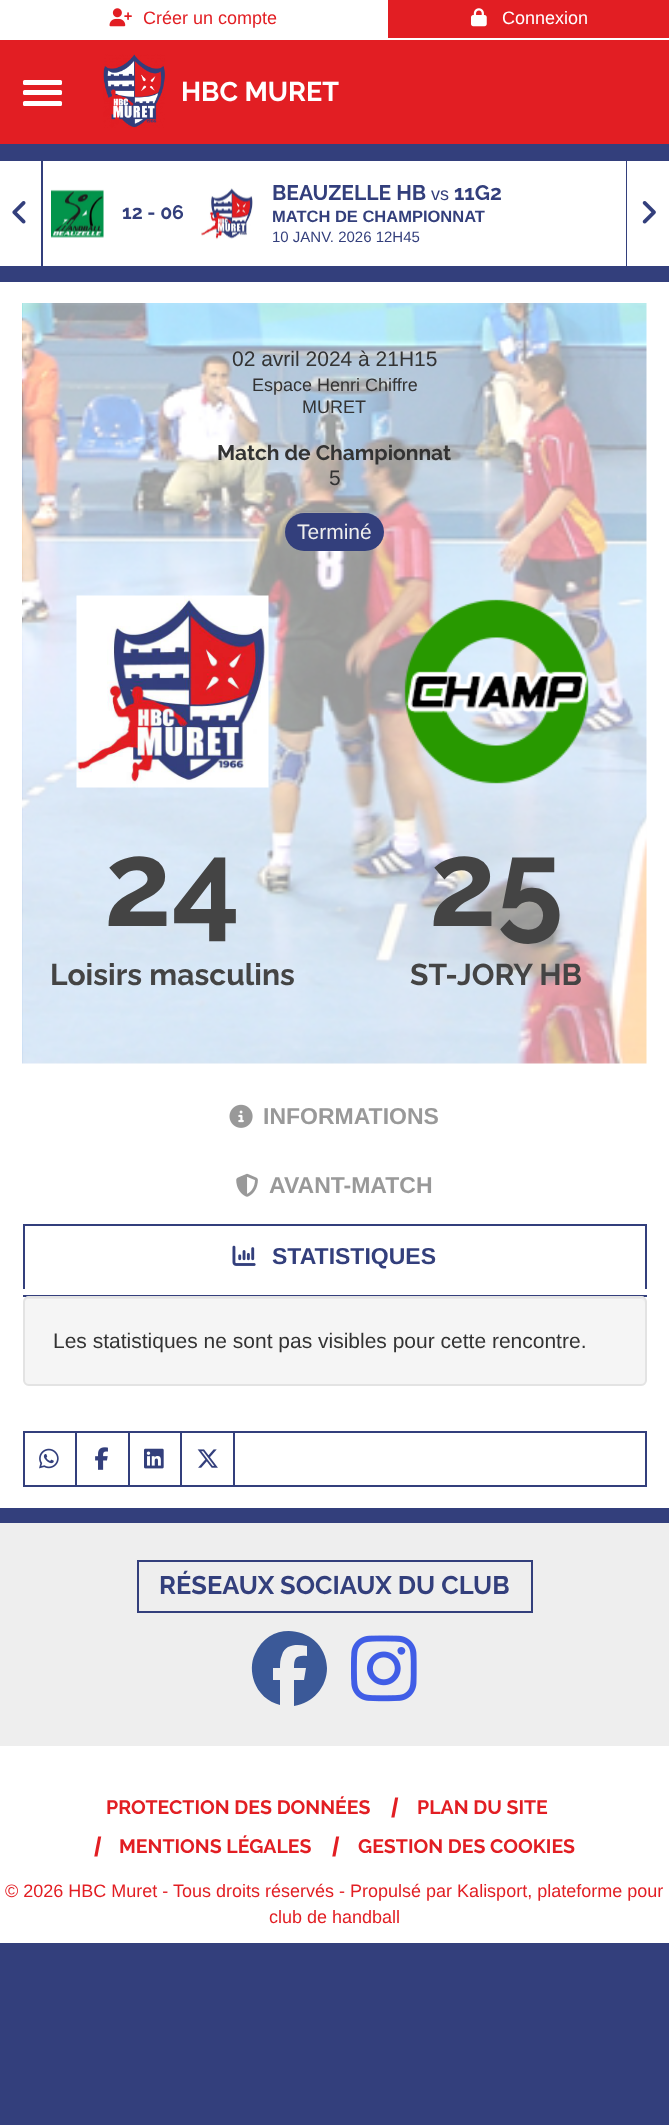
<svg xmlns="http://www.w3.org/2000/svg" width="669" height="2125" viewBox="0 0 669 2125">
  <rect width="100%" height="100%" fill="#333f7c"/>
  <rect x="0" y="0" width="669" height="144" fill="#e21e23"/>
  <rect x="0" y="0" width="386" height="38" fill="#ffffff"/>
  <rect x="387" y="38" width="282" height="2" fill="#ffffff"/>
  <rect x="386" y="0" width="2" height="39" fill="#ffffff"/>
  <rect x="0" y="38" width="387" height="2" fill="#ffffff"/>
  <image x="109" y="8" width="23" height="19" href="img1.png"/>
  <text x="143" y="24" font-family="Liberation Sans" font-size="18" fill="#e21e23">Créer un compte</text>
  <image x="471" y="8" width="16" height="19" href="img2.png"/>
  <text x="502" y="24" font-family="Liberation Sans" font-size="18" fill="#ffffff">Connexion</text>
  <rect x="23" y="80" width="39" height="5" rx="1.5" fill="#ffffff"/>
  <rect x="23" y="90" width="39" height="5" rx="1.5" fill="#ffffff"/>
  <rect x="23" y="101" width="39" height="5" rx="1.5" fill="#ffffff"/>
  <image x="103" y="54" width="62" height="74" href="img3.png"/>
  <text x="181" y="101" font-family="Raleway" font-size="27" font-weight="bold" fill="#ffffff">HBC MURET</text>
  <rect x="0" y="161" width="669" height="105" fill="#ffffff"/>
  <rect x="41" y="161" width="2" height="105" fill="#333f7c"/>
  <image x="12" y="201" width="14" height="23" href="img4.png"/>
  <image x="642" y="201" width="14" height="23" href="img5.png"/>
  <rect x="626" y="161" width="1" height="105" fill="#333f7c"/>
  <image x="51" y="189" width="53" height="49" href="img6.png"/>
  <text x="122" y="219" font-family="Raleway" font-size="19.5" font-weight="bold" fill="#333f7c">12 - 06</text>
  <image x="201" y="188" width="52" height="52" href="img7.png"/>
  <text x="272" y="200" font-family="Raleway" font-size="21" font-weight="bold" fill="#333f7c">BEAUZELLE HB</text>
  <text x="431" y="200" font-family="Liberation Sans" font-size="18" fill="#333f7c">vs</text>
  <text x="454" y="200" font-family="Raleway" font-size="21" font-weight="bold" fill="#333f7c">11G2</text>
  <text x="272" y="222" font-family="Liberation Sans" font-size="16.5" font-weight="bold" fill="#333f7c">MATCH DE CHAMPIONNAT</text>
  <text x="272" y="242" font-family="Liberation Sans" font-size="15" fill="#333f7c">10 JANV. 2026 12H45</text>
  <rect x="0" y="282" width="669" height="1226" fill="#ffffff"/>
  <image x="22" y="303" width="625" height="761" href="img8.png"/>
  <text x="232" y="366" font-family="Liberation Sans" font-size="21" fill="#333333">02 avril 2024 à 21H15</text>
  <text x="252" y="391" font-family="Liberation Sans" font-size="18" fill="#333333">Espace Henri Chiffre</text>
  <text x="302" y="413" font-family="Liberation Sans" font-size="18" fill="#333333">MURET</text>
  <text x="217" y="460" font-family="Raleway" font-size="21" font-weight="bold" fill="#333333">Match de Championnat</text>
  <text x="329" y="485" font-family="Liberation Sans" font-size="21" fill="#333333">5</text>
  <rect x="285" y="513" width="99" height="38" rx="19" fill="#333f7c"/>
  <text x="297" y="539" font-family="Liberation Sans" font-size="21" fill="#eeeeee">Terminé</text>
  <image x="76" y="595" width="193" height="193" href="img9.png"/>
  <text x="104" y="926" font-family="Raleway" font-size="120" font-weight="bold" fill="#444444">24</text>
  <image x="404" y="599" width="185" height="185" href="img10.png"/>
  <text x="429" y="926" font-family="Raleway" font-size="120" font-weight="bold" fill="#444444">25</text>
  <text x="50" y="985" font-family="Raleway" font-size="30" font-weight="bold" fill="#444444">Loisirs masculins</text>
  <text x="410" y="985" font-family="Raleway" font-size="30" font-weight="bold" fill="#444444">ST-JORY HB</text>
  <rect x="23" y="1295" width="624" height="2" fill="#333f7c"/>
  <image x="229" y="1104" width="24" height="24" href="img11.png"/>
  <text x="263" y="1124" font-family="Liberation Sans" font-size="23" font-weight="bold" fill="#999999">INFORMATIONS</text>
  <image x="236" y="1173" width="22" height="24" href="img12.png"/>
  <text x="269" y="1193" font-family="Liberation Sans" font-size="23" font-weight="bold" fill="#999999">AVANT-MATCH</text>
  <rect x="23" y="1224" width="624" height="2" fill="#333f7c"/>
  <rect x="645" y="1224" width="2" height="65" fill="#333f7c"/>
  <rect x="23" y="1224" width="2" height="65" fill="#333f7c"/>
  <image x="232" y="1245" width="24" height="21" href="img13.png"/>
  <text x="272" y="1264" font-family="Liberation Sans" font-size="23" font-weight="bold" fill="#333f7c">STATISTIQUES</text>
  <rect x="23" y="1296" width="624" height="90" rx="6" fill="#f5f5f5"/>
  <path d="M28 1299H640C643 1299 645 1301 645 1304V1303C645 1300 643 1298 640 1298H29C26 1298 24 1300 24 1303V1304C24 1301 26 1299 28 1299Z" fill="#e9e9e9"/>
  <rect x="24" y="1297" width="622" height="88" rx="5" fill="none" stroke="#e3e3e3" stroke-width="2"/>
  <text x="53" y="1348" font-family="Liberation Sans" font-size="21" fill="#333333">Les statistiques ne sont pas visibles pour cette rencontre.</text>
  <rect x="24" y="1432" width="622" height="54" fill="none" stroke="#333f7c" stroke-width="2"/>
  <rect x="75" y="1433" width="2" height="52" fill="#333f7c"/>
  <image x="39" y="1448" width="20" height="21" href="img14.png"/>
  <rect x="128" y="1433" width="2" height="52" fill="#333f7c"/>
  <image x="95" y="1447" width="13" height="23" href="img15.png"/>
  <rect x="180" y="1433" width="2" height="52" fill="#333f7c"/>
  <image x="144" y="1448" width="20" height="21" href="img16.png"/>
  <rect x="233" y="1433" width="2" height="52" fill="#333f7c"/>
  <image x="197" y="1449" width="21" height="19" href="img17.png"/>
  <rect x="0" y="1523" width="669" height="223" fill="#eeeeee"/>
  <rect x="138" y="1561" width="394" height="51" fill="none" stroke="#333f7c" stroke-width="2"/>
  <text x="159" y="1594" font-family="Raleway" font-size="25.5" font-weight="bold" fill="#333f7c">RÉSEAUX SOCIAUX DU CLUB</text>
  <path d="M327 1668C326 1628 271 1616 255 1654C251 1662 251 1672 254 1681C258 1693 268 1702 280 1705V1680H273V1668H280C280 1664 280 1659 282 1655C285 1644 297 1644 307 1646V1656C296 1655 294 1658 294 1668H306L304 1680H294V1706C313 1703 327 1687 327 1668Z" fill="#3b5998"/>
  <image x="351" y="1635" width="66" height="67" href="img18.png"/>
  <rect x="0" y="1746" width="669" height="197" fill="#ffffff"/>
  <text x="106" y="1814" font-family="Raleway" font-size="19.5" font-weight="bold" fill="#e21e23">PROTECTION DES DONNÉES</text>
  <text x="391" y="1817" font-family="Liberation Sans" font-size="27" font-weight="bold" fill="#e21e23">/</text>
  <text x="417" y="1814" font-family="Raleway" font-size="19.5" font-weight="bold" fill="#e21e23">PLAN DU SITE</text>
  <text x="94" y="1856" font-family="Liberation Sans" font-size="27" font-weight="bold" fill="#e21e23">/</text>
  <text x="119" y="1853" font-family="Raleway" font-size="19.5" font-weight="bold" fill="#e21e23">MENTIONS LÉGALES</text>
  <text x="332" y="1856" font-family="Liberation Sans" font-size="27" font-weight="bold" fill="#e21e23">/</text>
  <text x="358" y="1853" font-family="Raleway" font-size="19.5" font-weight="bold" fill="#e21e23">GESTION DES COOKIES</text>
  <text x="5" y="1897" font-family="Liberation Sans" font-size="18" fill="#e21e23">© 2026 HBC Muret - Tous droits réservés - Propulsé par Kalisport, plateforme pour</text>
  <text x="269" y="1923" font-family="Liberation Sans" font-size="18" fill="#e21e23">club de handball</text>
</svg>
